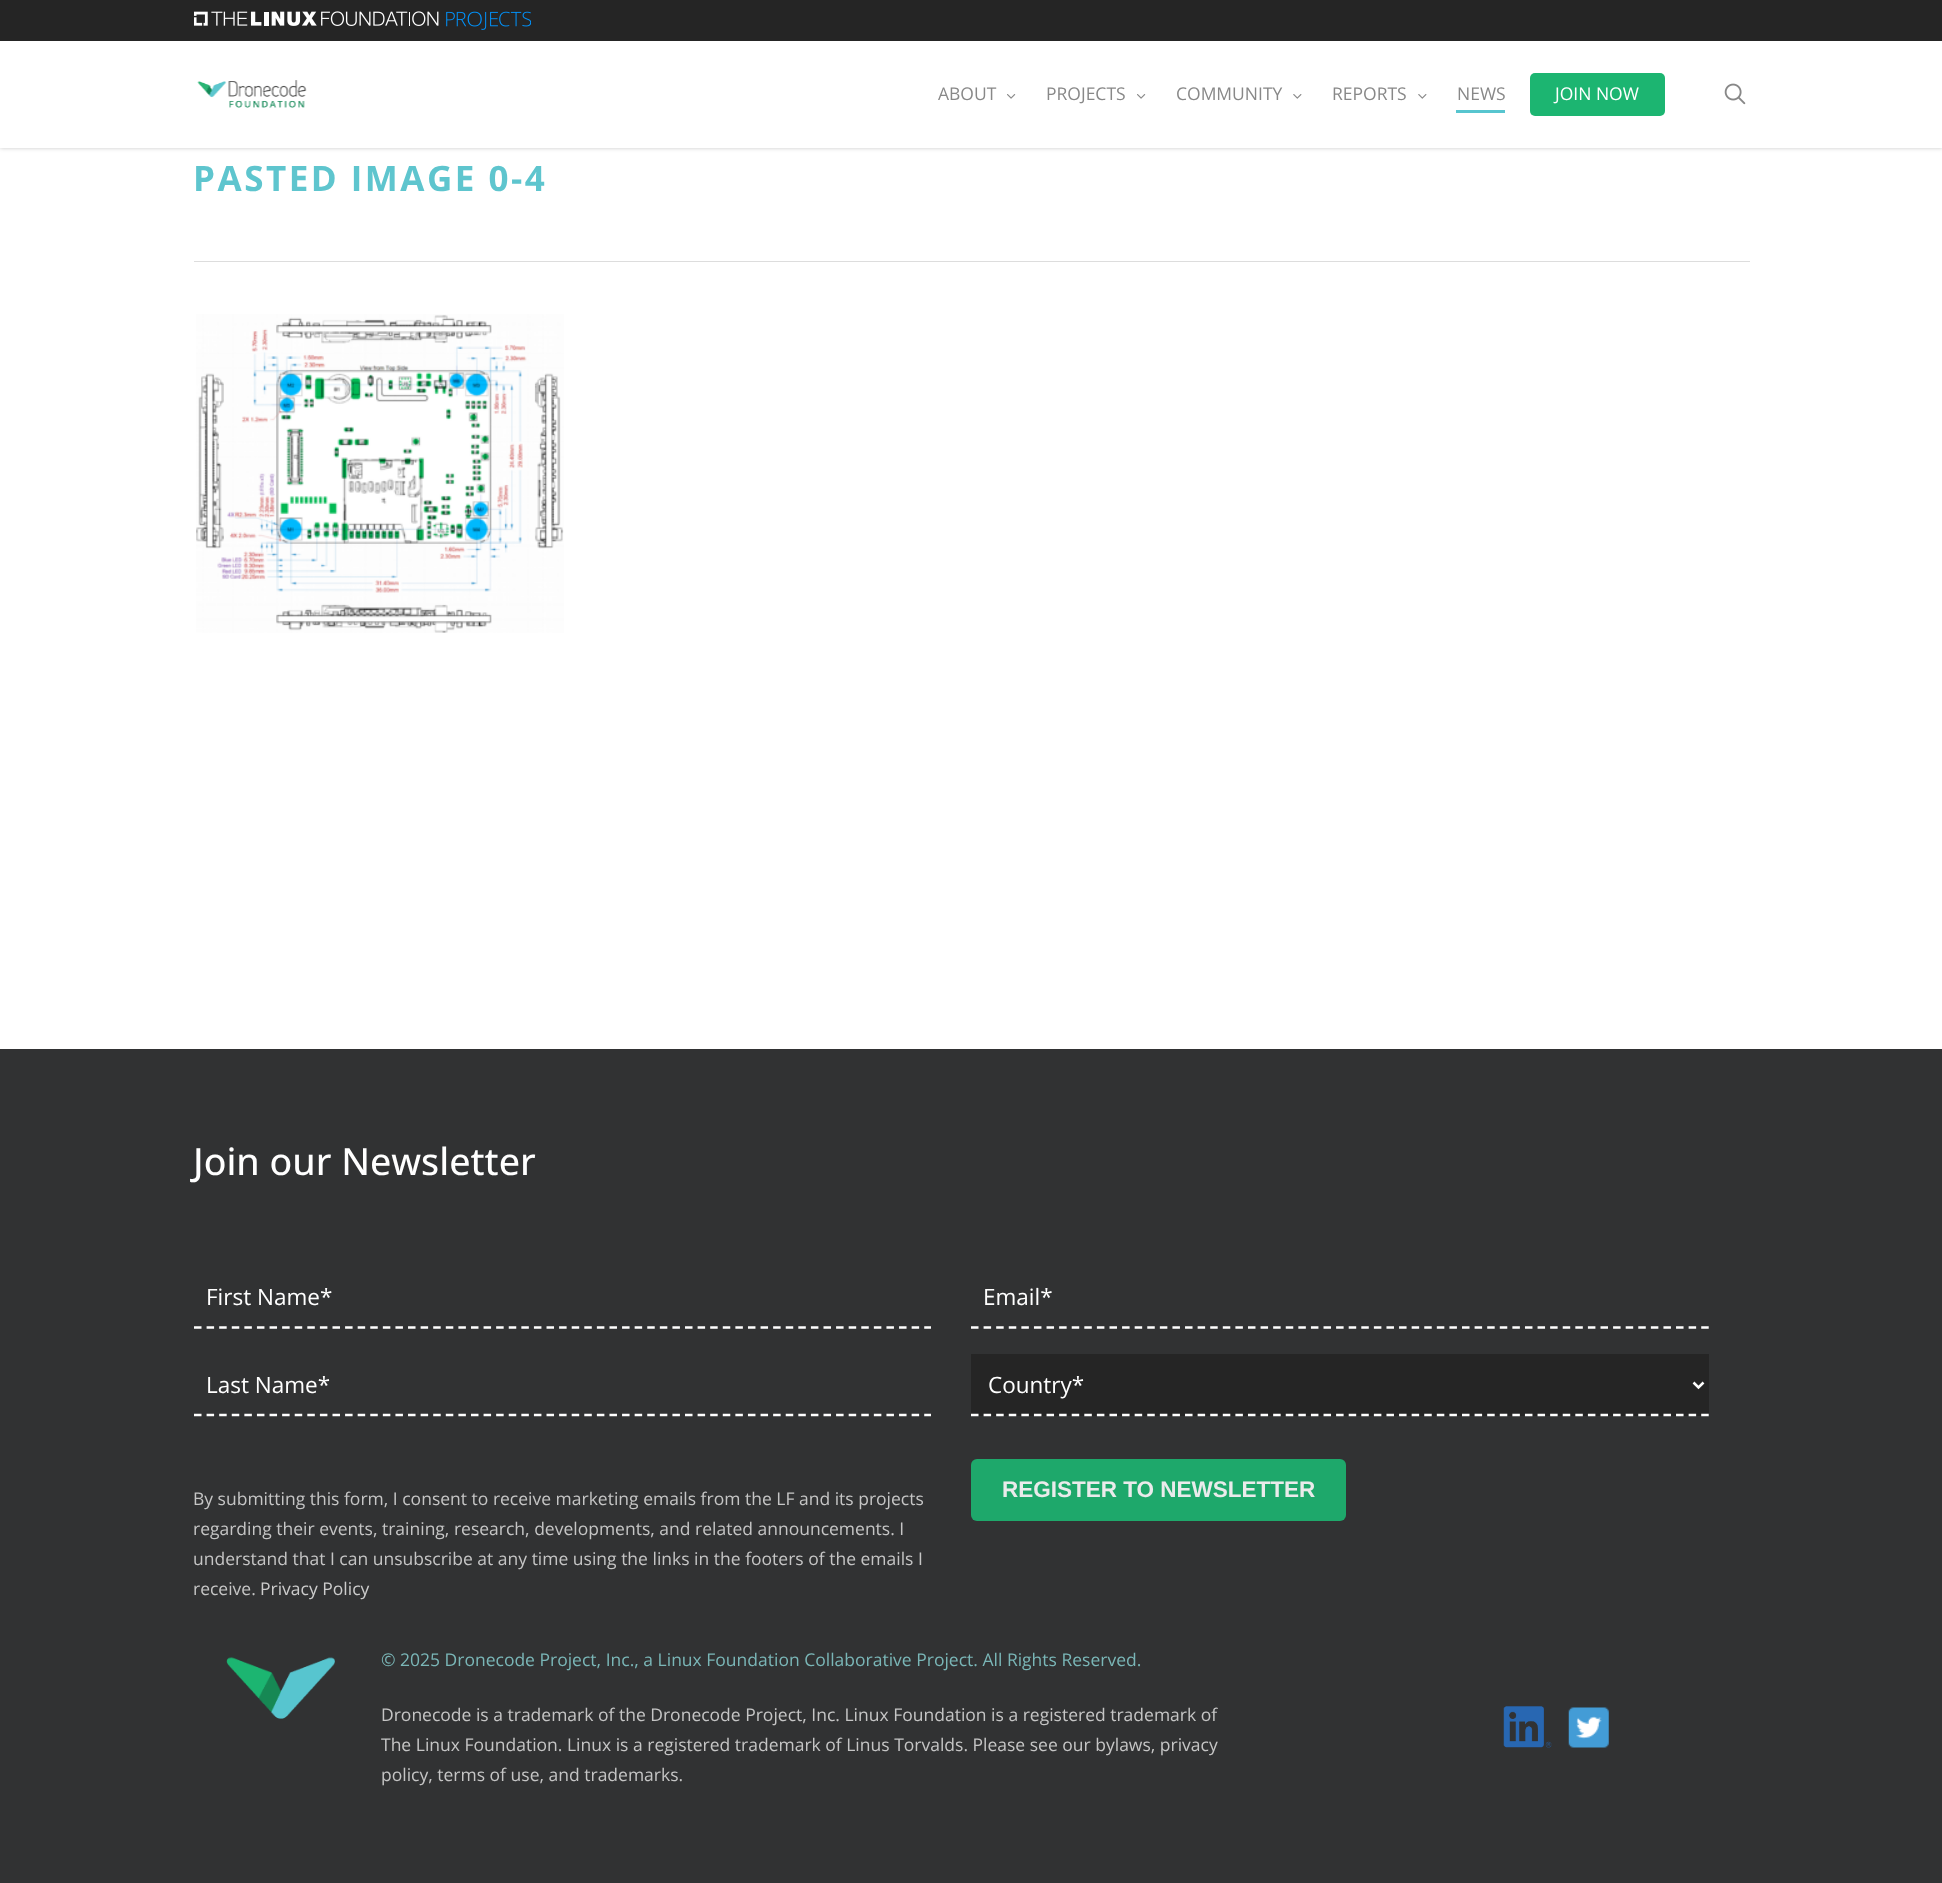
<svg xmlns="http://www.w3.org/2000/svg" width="1942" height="1883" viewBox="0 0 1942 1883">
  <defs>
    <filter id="blur1" x="-50%" y="-200%" width="200%" height="500%"><feGaussianBlur stdDeviation="2"/></filter>
  </defs>
  <rect width="100%" height="100%" fill="#ffffff"/>
  <rect x="0" y="40" width="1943" height="108" fill="#000000" fill-opacity="0.22" filter="url(#blur1)"/>
  <rect x="0" y="0" width="1942" height="41" fill="#252525"/>
  <image x="194" y="11" width="337" height="19" href="img1.png"/>
  <rect x="0" y="41" width="1942" height="107" fill="#ffffff"/>
  <image x="197" y="80" width="110" height="28" href="img2.png"/>
  <text x="938" y="100" font-family="Open Sans" font-size="17.5" fill="#888888">ABOUT</text>
  <image x="1007" y="94" width="9" height="5" href="img3.png"/>
  <text x="1046" y="100" font-family="Open Sans" font-size="17.5" fill="#888888">PROJECTS</text>
  <image x="1137" y="94" width="9" height="5" href="img3.png"/>
  <text x="1176" y="100" font-family="Open Sans" font-size="17.5" fill="#888888">COMMUNITY</text>
  <image x="1293" y="94" width="9" height="5" href="img4.png"/>
  <text x="1332" y="100" font-family="Open Sans" font-size="17.5" fill="#888888">REPORTS</text>
  <image x="1418" y="94" width="9" height="5" href="img4.png"/>
  <text x="1457" y="100" font-family="Open Sans" font-size="17.5" fill="#888888">NEWS</text>
  <rect x="1456" y="110" width="49" height="3" fill="#57c5cf"/>
  <rect x="1530" y="73" width="135" height="43" rx="5" fill="#1cb571"/>
  <text x="1555" y="100" font-family="Open Sans" font-size="17.5" fill="#ffffff">JOIN NOW</text>
  <image x="1724" y="83" width="22" height="22" href="img5.png"/>
  <rect x="194" y="261" width="1556" height="1" fill="#dddddd"/>
  <text x="193" y="191" font-family="Open Sans" font-size="35" font-weight="bold" letter-spacing="2.5" fill="#5ec5ce">PASTED IMAGE 0-4</text>
  <image x="196" y="314" width="368" height="319" href="img6.png"/>
  <rect x="0" y="1049" width="1942" height="834" fill="#313233"/>
  <text x="193" y="1175" font-family="Open Sans" font-size="37.5" font-weight="500" fill="#ffffff">Join our Newsletter</text>
  <path d="M194 1327.5H931" fill="none" stroke="#ffffff" stroke-width="2.5" stroke-dasharray="7.5 5.09"/>
  <text x="206" y="1305" font-family="Open Sans" font-size="22.5" fill="#ffffff">First Name*</text>
  <path d="M194 1415H931" fill="none" stroke="#ffffff" stroke-width="2.5" stroke-dasharray="7.5 5.09"/>
  <text x="206" y="1393" font-family="Open Sans" font-size="22.5" fill="#ffffff">Last Name*</text>
  <path d="M971 1327.5H1709" fill="none" stroke="#ffffff" stroke-width="2.5" stroke-dasharray="7.5 5.09"/>
  <text x="983" y="1305" font-family="Open Sans" font-size="22.5" fill="#ffffff">Email*</text>
  <rect x="971" y="1354" width="738" height="62" fill="#252525"/>
  <path d="M971 1415H1709" fill="none" stroke="#ffffff" stroke-width="2.5" stroke-dasharray="7.5 5.09"/>
  <path d="M1693.5 1382.5L1698.5 1387.5L1703.5 1382.5" fill="none" stroke="#ffffff" stroke-width="2.5"/>
  <text x="988" y="1393" font-family="Open Sans" font-size="22.5" fill="#ffffff">Country*</text>
  <text x="193" y="1505" font-family="Open Sans" font-size="17.5" fill="#c5c5c5">By submitting this form, I consent to receive marketing emails from the LF and its projects</text>
  <text x="193" y="1535" font-family="Open Sans" font-size="17.5" fill="#c5c5c5">regarding their events, training, research, developments, and related announcements. I</text>
  <text x="193" y="1565" font-family="Open Sans" font-size="17.5" fill="#c5c5c5">understand that I can unsubscribe at any time using the links in the footers of the emails I</text>
  <text x="193" y="1595" font-family="Open Sans" font-size="17.5" fill="#c5c5c5">receive.</text>
  <text x="260" y="1595" font-family="Open Sans" font-size="17.5" fill="#cccccc">Privacy Policy</text>
  <rect x="971" y="1459" width="375" height="62" rx="6" fill="#1ea86b"/>
  <text x="1002" y="1497" font-family="Liberation Sans" font-size="22.5" font-weight="bold" fill="#eaebeb">REGISTER TO NEWSLETTER</text>
  <image x="226" y="1657" width="109" height="62" href="img7.png"/>
  <text x="381" y="1666" font-family="'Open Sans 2'" font-size="17.5" fill="#7ab6b7">©</text>
  <text x="400" y="1666" font-family="Open Sans" font-size="17.5" fill="#7ab6b7">2025 Dronecode Project, Inc., a Linux Foundation Collaborative Project. All Rights Reserved.</text>
  <text x="381" y="1721" font-family="Open Sans" font-size="17.5" fill="#c5c5c5">Dronecode is a trademark of the Dronecode Project, Inc. Linux Foundation is a registered trademark of</text>
  <text x="381" y="1751" font-family="Open Sans" font-size="17.5" fill="#c5c5c5">The Linux Foundation. Linux is a registered trademark of Linus Torvalds. Please see our bylaws, privacy</text>
  <text x="381" y="1781" font-family="Open Sans" font-size="17.5" fill="#c5c5c5">policy, terms of use, and trademarks.</text>
  <image x="1503" y="1706" width="49" height="42" href="img8.png"/>
  <image x="1568" y="1707" width="41" height="41" href="img9.png"/>
</svg>
